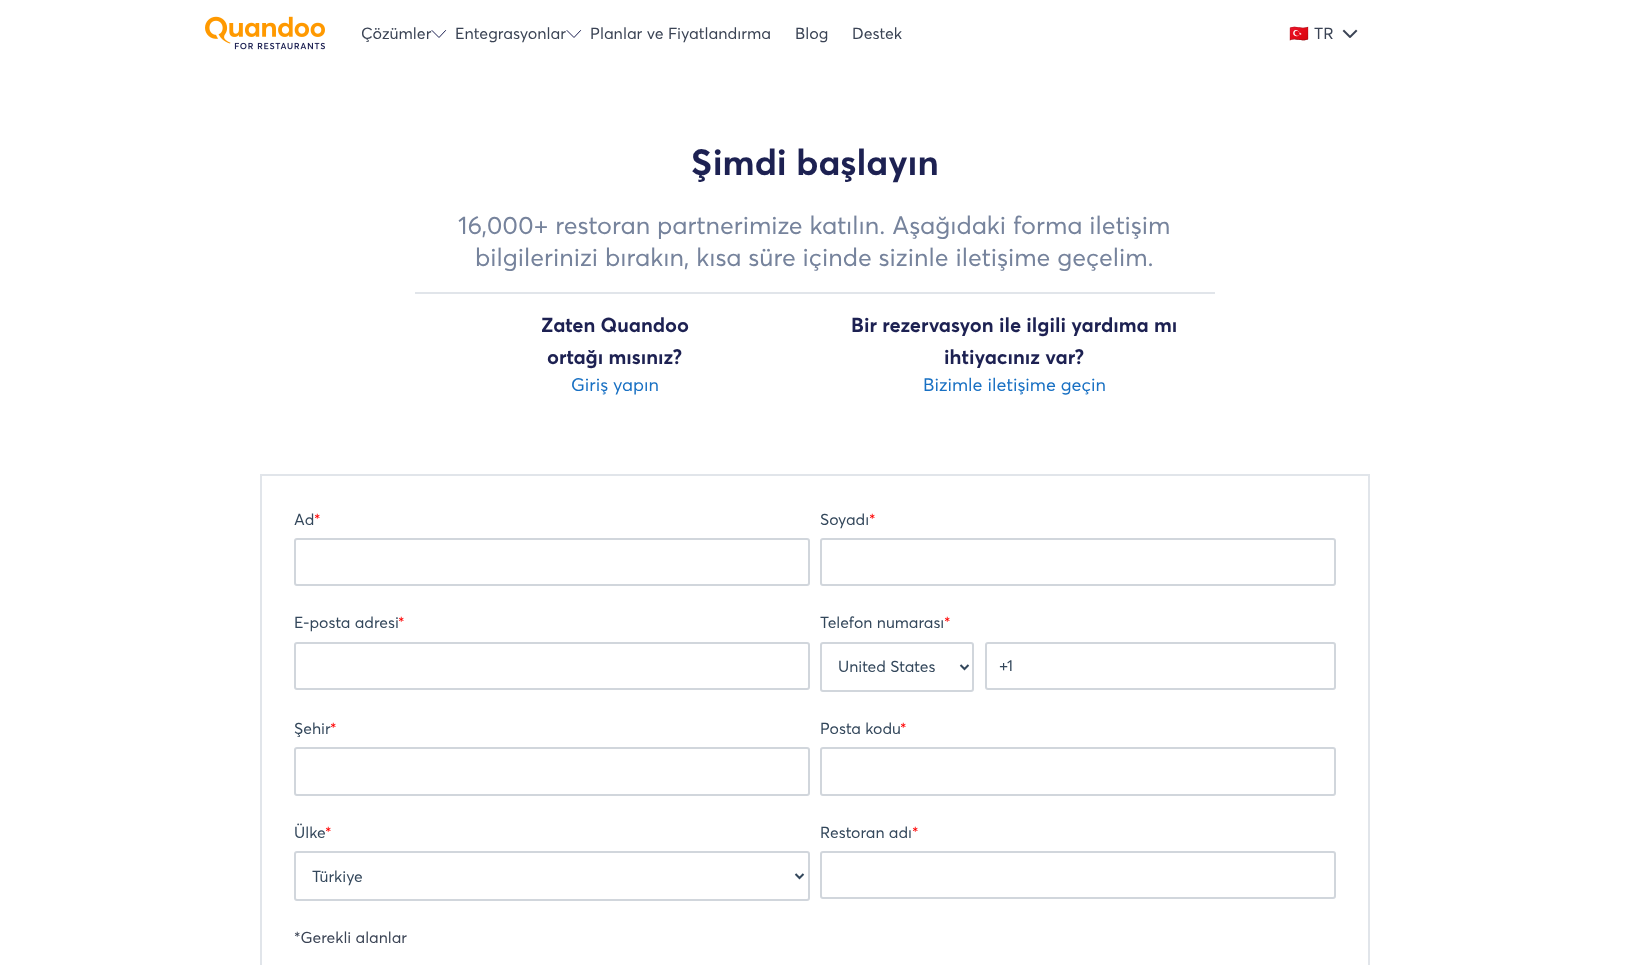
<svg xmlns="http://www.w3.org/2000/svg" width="1629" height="965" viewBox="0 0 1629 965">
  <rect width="100%" height="100%" fill="#ffffff"/>
  <image x="205" y="16" width="120" height="34" href="img1.png"/>
  <text x="361" y="39" font-family="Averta" font-size="16" fill="#3a4354">Çözümler</text>
  <image x="431" y="30" width="16" height="8" href="img2.png"/>
  <text x="455" y="39" font-family="Averta" font-size="16" fill="#3a4354">Entegrasyonlar</text>
  <image x="566" y="30" width="16" height="8" href="img2.png"/>
  <text x="590" y="39" font-family="Averta" font-size="16" fill="#3a4354">Planlar ve Fiyatlandırma</text>
  <text x="795" y="39" font-family="Averta" font-size="16" fill="#3a4354">Blog</text>
  <text x="852" y="39" font-family="Averta" font-size="16" fill="#3a4354">Destek</text>
  <text x="1289" y="39" font-family="Noto Color Emoji" font-size="16" fill="#3a4354">🇹🇷</text>
  <text x="1314" y="39" font-family="Averta" font-size="16" fill="#3a4354">TR</text>
  <image x="1342" y="29" width="16" height="9" href="img3.png"/>
  <text x="691" y="175" font-family="Averta" font-size="36" font-weight="bold" fill="#1d2152">Şimdi başlayın</text>
  <text x="458" y="234" font-family="Averta" font-size="25" fill="#76839c">16,000+ restoran partnerimize katılın. Aşağıdaki forma iletişim</text>
  <text x="475" y="266" font-family="Averta" font-size="25" fill="#76839c">bilgilerinizi bırakın, kısa süre içinde sizinle iletişime geçelim.</text>
  <rect x="415" y="292" width="800" height="2" fill="#e1e5ea"/>
  <text x="541" y="332" font-family="Averta" font-size="20" font-weight="bold" fill="#1d2152">Zaten Quandoo</text>
  <text x="547" y="364" font-family="Averta" font-size="20" font-weight="bold" fill="#1d2152">ortağı mısınız?</text>
  <text x="571" y="391" font-family="Averta" font-size="18" fill="#1870c3">Giriş yapın</text>
  <text x="851" y="332" font-family="Averta" font-size="20" font-weight="bold" fill="#1d2152">Bir rezervasyon ile ilgili yardıma mı</text>
  <text x="944" y="364" font-family="Averta" font-size="20" font-weight="bold" fill="#1d2152">ihtiyacınız var?</text>
  <text x="923" y="391" font-family="Averta" font-size="18" fill="#1870c3">Bizimle iletişime geçin</text>
  <rect x="261" y="475" width="1108" height="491" fill="none" stroke="#e1e5ea" stroke-width="2"/>
  <text x="294" y="525" font-family="Averta" font-size="15.75" fill="#33475b">Ad</text>
  <text x="314" y="525" font-family="Averta" font-size="15.75" fill="#ff0000">*</text>
  <rect x="295" y="539" width="514" height="46" rx="2" fill="none" stroke="#d1d6dc" stroke-width="2"/>
  <text x="820" y="525" font-family="Averta" font-size="15.75" fill="#33475b">Soyadı</text>
  <text x="869" y="525" font-family="Averta" font-size="15.75" fill="#ff0000">*</text>
  <rect x="821" y="539" width="514" height="46" rx="2" fill="none" stroke="#d1d6dc" stroke-width="2"/>
  <text x="294" y="628" font-family="Averta" font-size="15.75" fill="#33475b">E-posta adresi</text>
  <text x="398" y="628" font-family="Averta" font-size="15.75" fill="#ff0000">*</text>
  <rect x="295" y="643" width="514" height="46" rx="2" fill="none" stroke="#d1d6dc" stroke-width="2"/>
  <text x="820" y="628" font-family="Averta" font-size="15.75" fill="#33475b">Telefon numarası</text>
  <text x="944" y="628" font-family="Averta" font-size="15.75" fill="#ff0000">*</text>
  <rect x="821" y="643" width="152" height="48" rx="2" fill="none" stroke="#d1d6dc" stroke-width="2"/>
  <path d="M960.5 665L964.5 669L968.5 665" fill="none" stroke="#33475b" stroke-width="2"/>
  <text x="838" y="672" font-family="Averta" font-size="15.75" fill="#33475b">United States</text>
  <rect x="986" y="643" width="349" height="46" rx="2" fill="none" stroke="#d1d6dc" stroke-width="2"/>
  <text x="999" y="671" font-family="Averta" font-size="15.75" fill="#33475b">+1</text>
  <text x="294" y="734" font-family="Averta" font-size="15.75" fill="#33475b">Şehir</text>
  <text x="330" y="734" font-family="Averta" font-size="15.75" fill="#ff0000">*</text>
  <rect x="295" y="748" width="514" height="47" rx="2" fill="none" stroke="#d1d6dc" stroke-width="2"/>
  <text x="820" y="734" font-family="Averta" font-size="15.75" fill="#33475b">Posta kodu</text>
  <text x="900" y="734" font-family="Averta" font-size="15.75" fill="#ff0000">*</text>
  <rect x="821" y="748" width="514" height="47" rx="2" fill="none" stroke="#d1d6dc" stroke-width="2"/>
  <text x="294" y="838" font-family="Averta" font-size="15.75" fill="#33475b">Ülke</text>
  <text x="325" y="838" font-family="Averta" font-size="15.75" fill="#ff0000">*</text>
  <rect x="295" y="852" width="514" height="48" rx="2" fill="none" stroke="#d1d6dc" stroke-width="2"/>
  <path d="M795.5 874L799.5 878L803.5 874" fill="none" stroke="#33475b" stroke-width="2"/>
  <text x="312" y="882" font-family="Averta" font-size="15.75" fill="#33475b">Türkiye</text>
  <text x="820" y="838" font-family="Averta" font-size="15.75" fill="#33475b">Restoran adı</text>
  <text x="912" y="838" font-family="Averta" font-size="15.75" fill="#ff0000">*</text>
  <rect x="821" y="852" width="514" height="46" rx="2" fill="none" stroke="#d1d6dc" stroke-width="2"/>
  <text x="294" y="943" font-family="Averta" font-size="15.75" fill="#3a4354">*Gerekli alanlar</text>
</svg>
